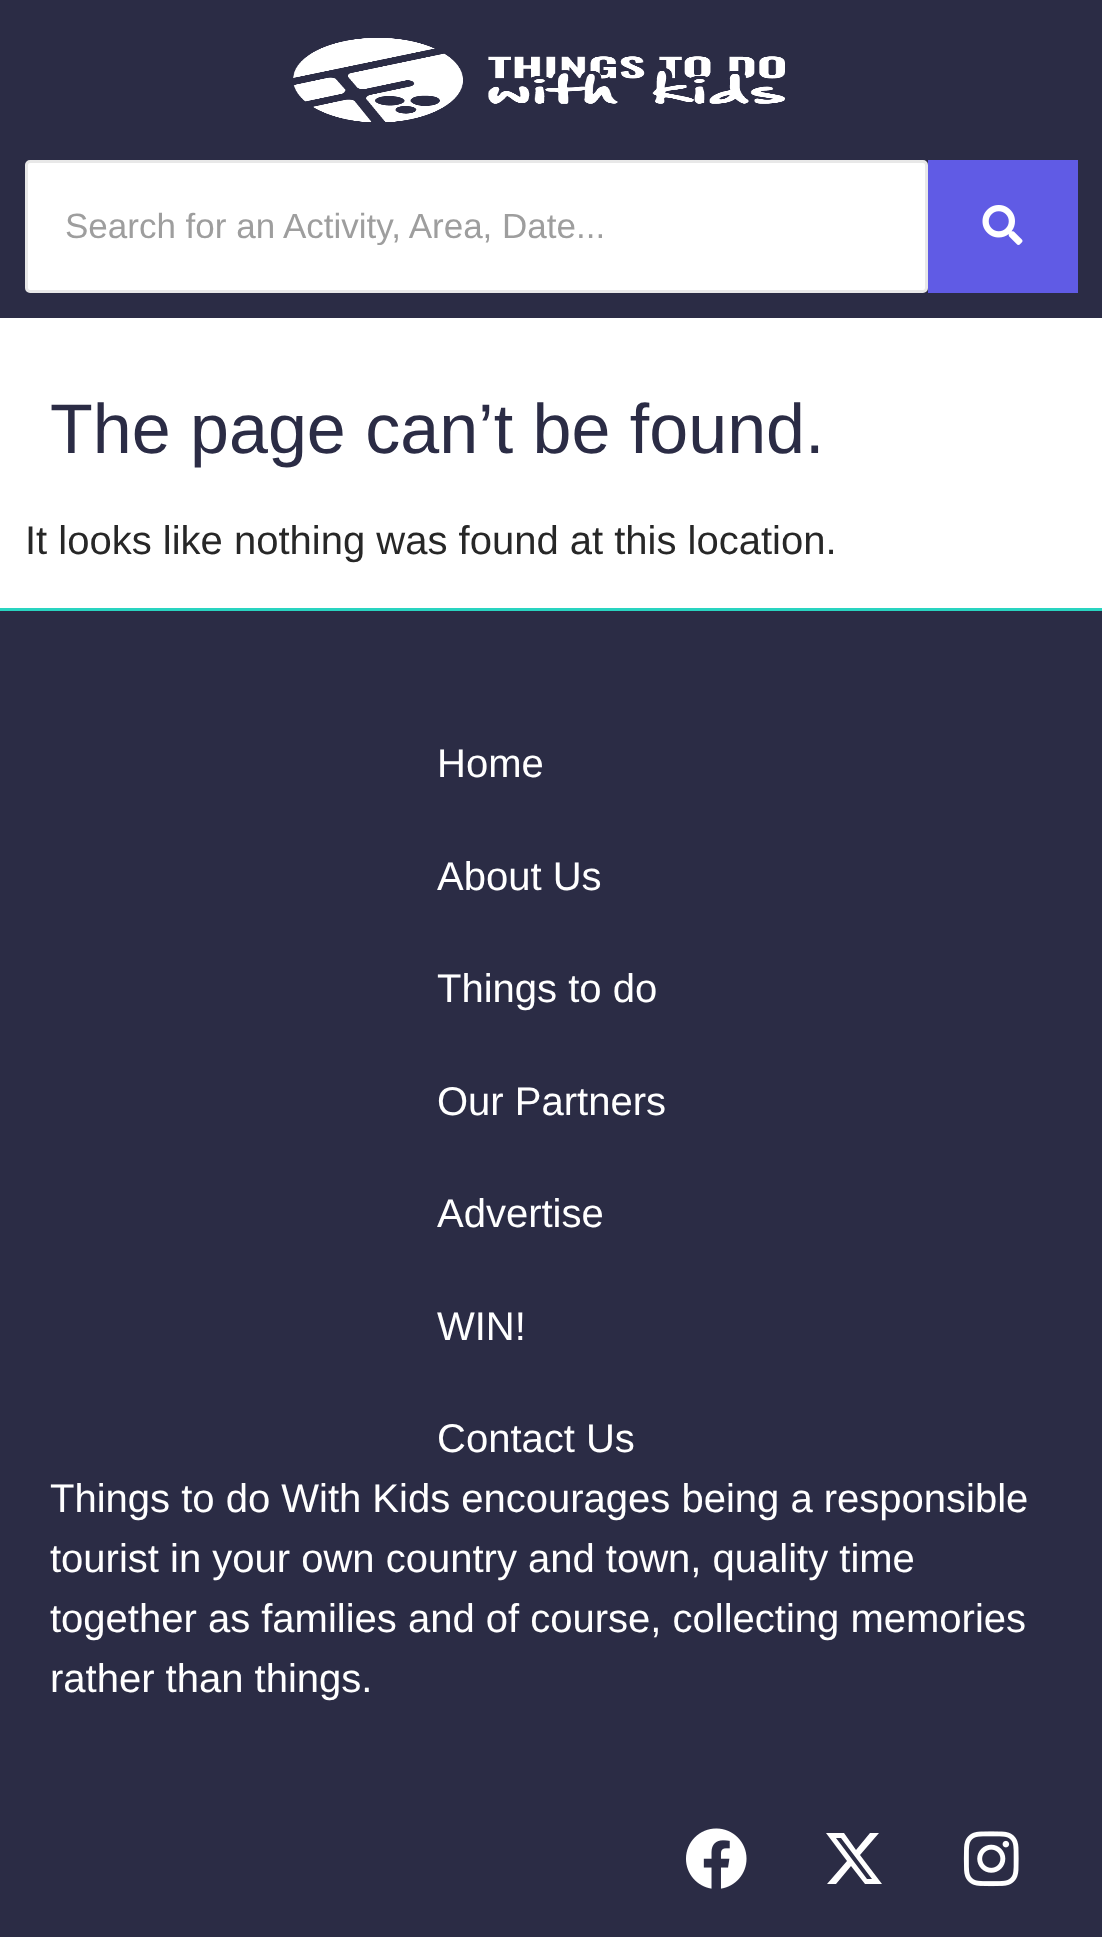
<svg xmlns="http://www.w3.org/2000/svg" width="1102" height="1937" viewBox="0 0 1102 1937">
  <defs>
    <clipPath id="clip1"><rect x="65" y="205" width="813" height="40"/></clipPath>
  </defs>
  <rect width="100%" height="100%" fill="#ffffff"/>
  <rect x="0" y="0" width="1102" height="318" fill="#2b2c45"/>
  <image x="293" y="38" width="492" height="84" href="img1.png"/>
  <rect x="26.5" y="161.5" width="900" height="130" rx="3.5" fill="#ffffff" stroke="#e8e8e8" stroke-width="3"/>
  <g clip-path="url(#clip1)">
    <text x="65" y="238" font-family="Liberation Sans" font-size="35" fill="#9e9e9e">Search for an Activity, Area, Date...</text>
  </g>
  <rect x="928" y="160" width="150" height="133" fill="#605be5"/>
  <image x="982" y="205" width="41" height="40" href="img2.png"/>
  <text x="50" y="453" font-family="Liberation Sans" font-size="70" fill="#2b2c45">The page can’t be found.</text>
  <text x="25" y="554" font-family="Liberation Sans" font-size="40" fill="#272727">It looks like nothing was found at this location.</text>
  <rect x="0" y="611" width="1102" height="1326" fill="#2b2c45"/>
  <rect x="0" y="608" width="1102" height="3" fill="#29d4c0"/>
  <text x="437" y="777" font-family="Liberation Sans" font-size="40" fill="#ffffff">Home</text>
  <text x="437" y="890" font-family="Liberation Sans" font-size="40" fill="#ffffff">About Us</text>
  <text x="437" y="1002" font-family="Liberation Sans" font-size="40" fill="#ffffff">Things to do</text>
  <text x="437" y="1115" font-family="Liberation Sans" font-size="40" fill="#ffffff">Our Partners</text>
  <text x="437" y="1227" font-family="Liberation Sans" font-size="40" fill="#ffffff">Advertise</text>
  <text x="437" y="1340" font-family="Liberation Sans" font-size="40" fill="#ffffff">WIN!</text>
  <text x="437" y="1452" font-family="Liberation Sans" font-size="40" fill="#ffffff">Contact Us</text>
  <text x="50" y="1512" font-family="Liberation Sans" font-size="40" fill="#ffffff">Things to do With Kids encourages being a responsible</text>
  <text x="50" y="1572" font-family="Liberation Sans" font-size="40" fill="#ffffff">tourist in your own country and town, quality time</text>
  <text x="50" y="1632" font-family="Liberation Sans" font-size="40" fill="#ffffff">together as families and of course, collecting memories</text>
  <text x="50" y="1692" font-family="Liberation Sans" font-size="40" fill="#ffffff">rather than things.</text>
  <image x="686" y="1828" width="61" height="61" href="img3.png"/>
  <path d="M870 1833H879L860 1855L882 1884H865L851 1866L836 1884H827L847 1861L826 1833H844L856 1850ZM867 1879H872L841 1838H836Z" fill="#ffffff"/>
  <image x="963" y="1831" width="56" height="56" href="img4.png"/>
</svg>
